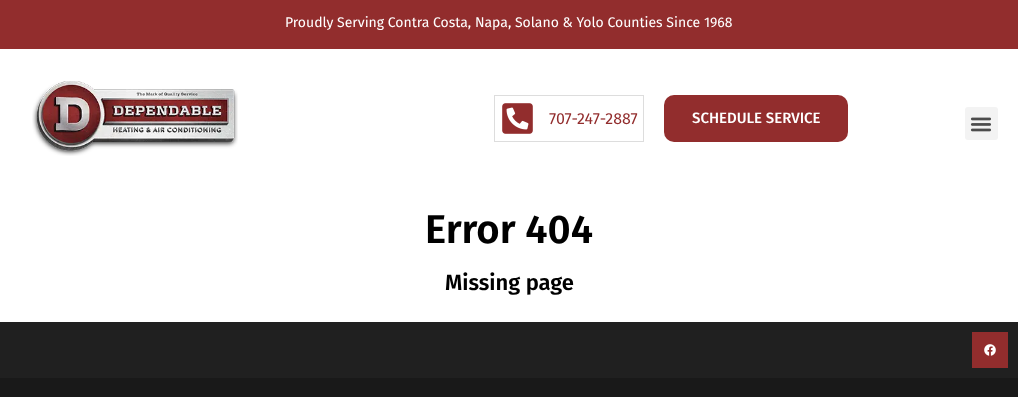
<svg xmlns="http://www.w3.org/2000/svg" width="1018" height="397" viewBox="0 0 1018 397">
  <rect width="100%" height="100%" fill="#ffffff"/>
  <rect x="0" y="0" width="1018" height="49" fill="#922d2d"/>
  <text x="285" y="27" font-family="Fira Sans" font-size="14" fill="#ffffff">Proudly Serving Contra Costa, Napa, Solano &amp; Yolo Counties Since 1968</text>
  <image x="32" y="81" width="206" height="75" href="img1.png"/>
  <rect x="494.5" y="95.5" width="149" height="46" fill="none" stroke="#dddddd"/>
  <image x="502" y="103" width="31" height="31" href="img2.png"/>
  <text x="549" y="124" font-family="Fira Sans" font-size="16" fill="#922d2d">707-247-2887</text>
  <rect x="664" y="95" width="184" height="47" rx="10" fill="#922d2d"/>
  <text x="692" y="123" font-family="Fira Sans" font-size="15" font-weight="500" fill="#ffffff">SCHEDULE SERVICE</text>
  <rect x="965" y="107" width="33" height="33" rx="3" fill="#f3f3f3"/>
  <image x="970" y="117" width="21" height="15" href="img3.png"/>
  <text x="425" y="243" font-family="Fira Sans" font-size="40" font-weight="600" fill="#000000">Error 404</text>
  <text x="445" y="290" font-family="Fira Sans" font-size="22" font-weight="600" fill="#000000">Missing page</text>
  <rect x="0" y="322" width="1018" height="56" fill="#202020"/>
  <rect x="972" y="332" width="36" height="36" fill="#922d2d"/>
  <image x="984" y="344" width="12" height="12" href="img4.png"/>
  <rect x="0" y="378" width="1018" height="19" fill="#191919"/>
</svg>
